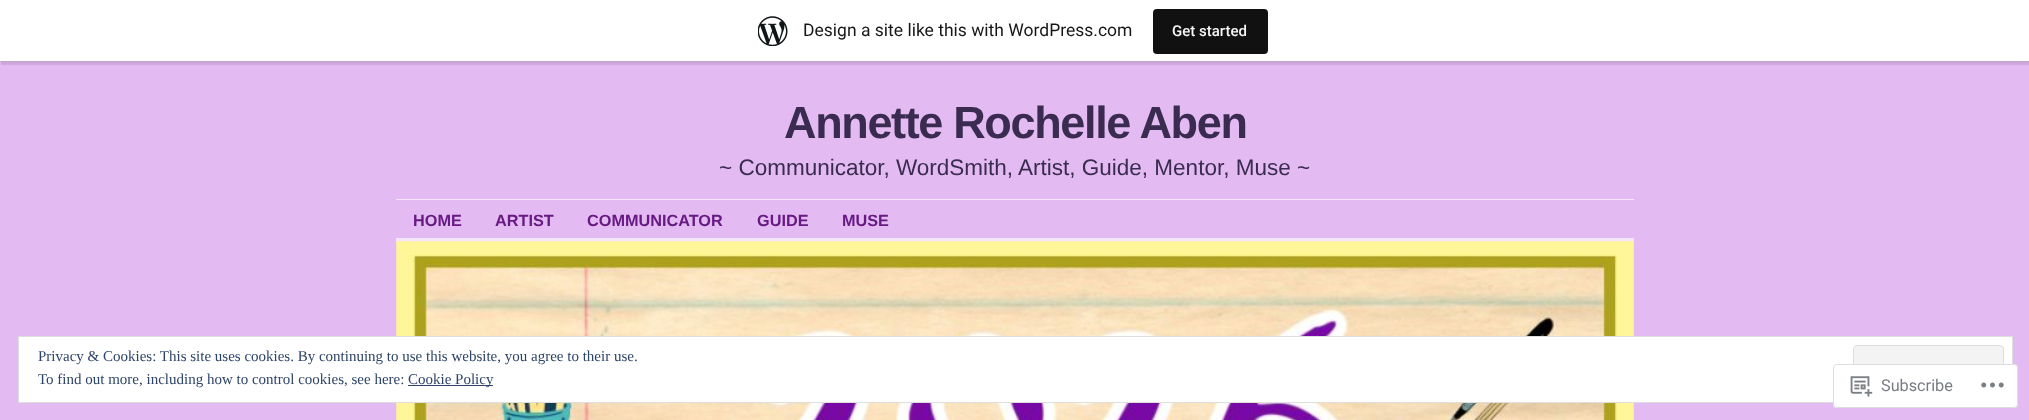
<svg xmlns="http://www.w3.org/2000/svg" width="2029" height="420" viewBox="0 0 2029 420">
  <defs>
    <filter id="blur1" x="-50%" y="-200%" width="200%" height="500%"><feGaussianBlur stdDeviation="1"/></filter>
  </defs>
  <rect width="100%" height="100%" fill="#e4baf2"/>
  <rect x="0" y="1" width="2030" height="62" fill="#000000" fill-opacity="0.05" filter="url(#blur1)"/>
  <path d="M1 61V65H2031V4H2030V61Z" fill="#000000" fill-opacity="0.08"/>
  <rect x="0" y="0" width="2029" height="61" fill="#ffffff"/>
  <image x="758" y="16" width="30" height="30" href="img1.png"/>
  <text x="803" y="36" font-family="Roboto" font-size="17.5" fill="#171717">Design a site like this with WordPress.com</text>
  <rect x="1153" y="9" width="115" height="45" rx="4" fill="#111111"/>
  <text x="1172" y="36" font-family="Roboto" font-size="15" font-weight="500" fill="#f6f7f7">Get started</text>
  <text x="784" y="138" font-family="Liberation Sans" font-size="45" font-weight="bold" letter-spacing="-1.35" fill="#3a2c50">Annette Rochelle Aben</text>
  <text x="719" y="175" font-family="Liberation Sans" font-size="22.5" fill="#3a2c50">~ Communicator, WordSmith, Artist, Guide, Mentor, Muse ~</text>
  <rect x="396" y="199" width="1238" height="1" fill="#f4e5fa"/>
  <text x="413" y="226" font-family="Liberation Sans" font-size="16.25" font-weight="bold" fill="#671a84">HOME</text>
  <text x="495" y="226" font-family="Liberation Sans" font-size="16.25" font-weight="bold" fill="#671a84">ARTIST</text>
  <text x="587" y="226" font-family="Liberation Sans" font-size="16.25" font-weight="bold" fill="#671a84">COMMUNICATOR</text>
  <text x="757" y="226" font-family="Liberation Sans" font-size="16.25" font-weight="bold" fill="#671a84">GUIDE</text>
  <text x="842" y="226" font-family="Liberation Sans" font-size="16.25" font-weight="bold" fill="#671a84">MUSE</text>
  <rect x="396" y="238" width="1238" height="4" fill="#f4e5fa"/>
  <image x="396" y="241" width="1238" height="179" href="img2.png"/>
  <rect x="18.5" y="336.5" width="1994" height="66" fill="#ffffff" stroke="#dedede"/>
  <text x="38" y="361" font-family="Liberation Serif" font-size="15" fill="#2e4467">Privacy &amp; Cookies: This site uses cookies. By continuing to use this website, you agree to their use.</text>
  <rect x="1853.5" y="345.5" width="150" height="48" rx="3.5" fill="#f3f3f3" stroke="#dedede"/>
  <text x="38" y="384" font-family="Liberation Serif" font-size="15" fill="#2e4467">To find out more, including how to control cookies, see here:</text>
  <rect x="408" y="385" width="85" height="1" fill="#2e4467"/>
  <text x="408" y="384" font-family="Liberation Serif" font-size="15" fill="#2e4467">Cookie Policy</text>
  <rect x="1833" y="364" width="185" height="44" rx="4" fill="#ffffff" fill-opacity="0.98"/>
  <rect x="1833.5" y="364.5" width="184" height="43" rx="3.5" fill="none" stroke="#dcdcde" stroke-opacity="0.98"/>
  <image x="1850" y="376" width="23" height="21" href="img3.png"/>
  <text x="1881" y="391" font-family="Roboto" font-size="16.25" fill="#7a7e84">Subscribe</text>
  <image x="1981" y="382" width="23" height="6" href="img4.png"/>
</svg>
